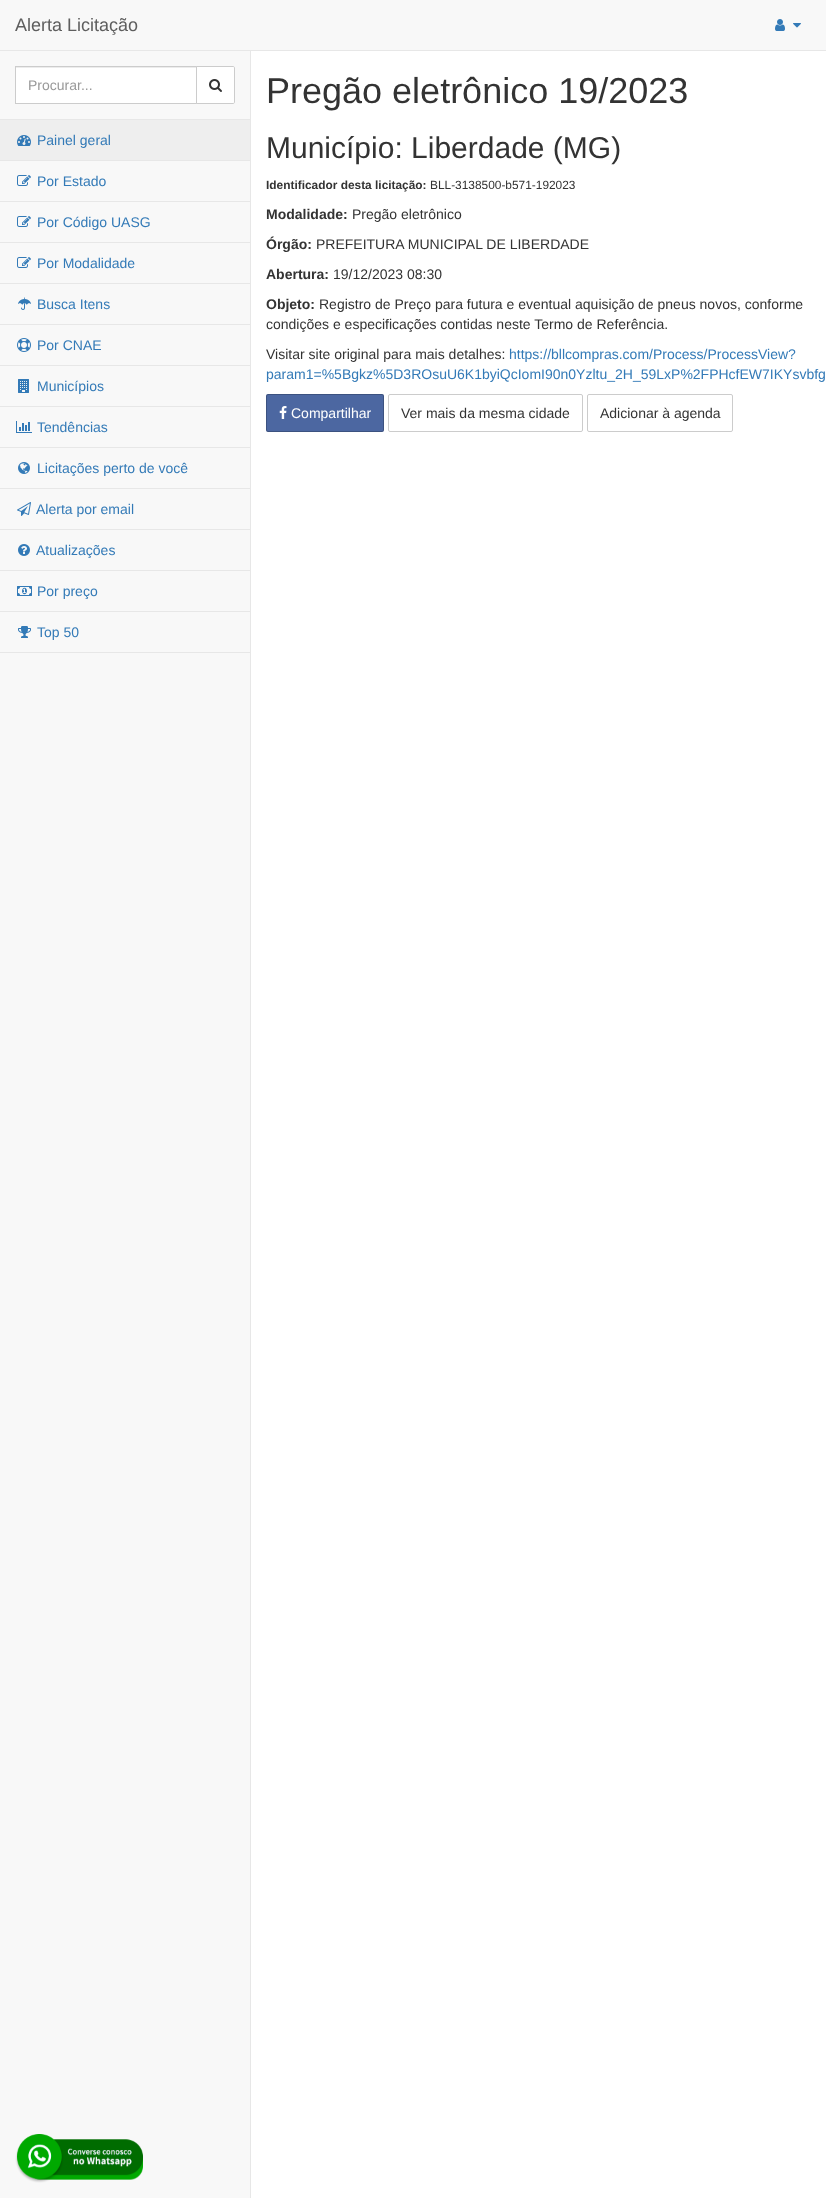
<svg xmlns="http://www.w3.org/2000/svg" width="826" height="2198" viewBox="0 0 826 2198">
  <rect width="100%" height="100%" fill="#f8f8f8"/>
  <rect x="0" y="50" width="826" height="1" fill="#e7e7e7"/>
  <text x="15" y="31" font-family="Liberation Sans" font-size="18" fill="#5e5e5e">Alerta Licitação</text>
  <image x="775" y="19" width="10" height="12" href="img1.png"/>
  <image x="793" y="23" width="8" height="5" href="img2.png"/>
  <rect x="0" y="119" width="250" height="1" fill="#e7e7e7"/>
  <rect x="16" y="68" width="180" height="35" fill="#ffffff"/>
  <rect x="16" y="67" width="180" height="1" fill="#ececec"/>
  <rect x="15.5" y="66.5" width="181" height="37" fill="none" stroke="#cccccc"/>
  <text x="28" y="90" font-family="Liberation Sans" font-size="14" fill="#999999">Procurar...</text>
  <path d="M196.5 66.5H233C234 66.5 234.5 67 234.5 68V102C234.5 103 234 103.5 233 103.5H196.5Z" fill="#ffffff" stroke="#cccccc"/>
  <image x="209" y="79" width="13" height="13" href="img3.png"/>
  <rect x="0" y="160" width="250" height="1" fill="#e7e7e7"/>
  <rect x="0" y="120" width="250" height="40" fill="#eeeeee"/>
  <image x="17" y="135" width="14" height="11" href="img4.png"/>
  <text x="37" y="145" font-family="Liberation Sans" font-size="14" fill="#337ab7">Painel geral</text>
  <rect x="0" y="201" width="250" height="1" fill="#e7e7e7"/>
  <image x="17" y="175" width="14" height="11" href="img5.png"/>
  <text x="37" y="186" font-family="Liberation Sans" font-size="14" fill="#337ab7">Por Estado</text>
  <rect x="0" y="242" width="250" height="1" fill="#e7e7e7"/>
  <image x="17" y="216" width="14" height="11" href="img5.png"/>
  <text x="37" y="227" font-family="Liberation Sans" font-size="14" fill="#337ab7">Por Código UASG</text>
  <rect x="0" y="283" width="250" height="1" fill="#e7e7e7"/>
  <image x="17" y="257" width="14" height="11" href="img5.png"/>
  <text x="37" y="268" font-family="Liberation Sans" font-size="14" fill="#337ab7">Por Modalidade</text>
  <rect x="0" y="324" width="250" height="1" fill="#e7e7e7"/>
  <image x="18" y="297" width="13" height="13" href="img6.png"/>
  <text x="37" y="309" font-family="Liberation Sans" font-size="14" fill="#337ab7">Busca Itens</text>
  <rect x="0" y="365" width="250" height="1" fill="#e7e7e7"/>
  <image x="17" y="338" width="14" height="14" href="img7.png"/>
  <text x="37" y="350" font-family="Liberation Sans" font-size="14" fill="#337ab7">Por CNAE</text>
  <rect x="0" y="406" width="250" height="1" fill="#e7e7e7"/>
  <image x="18" y="379" width="11" height="14" href="img8.png"/>
  <text x="37" y="391" font-family="Liberation Sans" font-size="14" fill="#337ab7">Municípios</text>
  <rect x="0" y="447" width="250" height="1" fill="#e7e7e7"/>
  <image x="16" y="421" width="16" height="12" href="img9.png"/>
  <text x="37" y="432" font-family="Liberation Sans" font-size="14" fill="#337ab7">Tendências</text>
  <rect x="0" y="488" width="250" height="1" fill="#e7e7e7"/>
  <image x="18" y="462" width="12" height="12" href="img10.png"/>
  <text x="37" y="473" font-family="Liberation Sans" font-size="14" fill="#337ab7">Licitações perto de você</text>
  <rect x="0" y="529" width="250" height="1" fill="#e7e7e7"/>
  <image x="17" y="502" width="14" height="14" href="img11.png"/>
  <text x="36" y="514" font-family="Liberation Sans" font-size="14" fill="#337ab7">Alerta por email</text>
  <rect x="0" y="570" width="250" height="1" fill="#e7e7e7"/>
  <image x="18" y="544" width="12" height="12" href="img12.png"/>
  <text x="36" y="555" font-family="Liberation Sans" font-size="14" fill="#337ab7">Atualizações</text>
  <rect x="0" y="611" width="250" height="1" fill="#e7e7e7"/>
  <image x="17" y="586" width="15" height="10" href="img13.png"/>
  <text x="37" y="596" font-family="Liberation Sans" font-size="14" fill="#337ab7">Por preço</text>
  <rect x="0" y="652" width="250" height="1" fill="#e7e7e7"/>
  <image x="18" y="626" width="13" height="12" href="img14.png"/>
  <text x="37" y="637" font-family="Liberation Sans" font-size="14" fill="#337ab7">Top 50</text>
  <rect x="251" y="51" width="575" height="2147" fill="#ffffff"/>
  <rect x="250" y="51" width="1" height="2147" fill="#e7e7e7"/>
  <text x="266" y="103" font-family="Liberation Sans" font-size="36" fill="#333333">Pregão eletrônico 19/2023</text>
  <text x="266" y="158" font-family="Liberation Sans" font-size="30" fill="#333333">Município: Liberdade (MG)</text>
  <text x="266" y="189" font-family="Liberation Sans" font-size="11.9" font-weight="bold" fill="#333333">Identificador desta licitação:</text>
  <text x="430" y="189" font-family="Liberation Sans" font-size="11.9" fill="#333333">BLL-3138500-b571-192023</text>
  <text x="266" y="219" font-family="Liberation Sans" font-size="14" font-weight="bold" fill="#333333">Modalidade:</text>
  <text x="352" y="219" font-family="Liberation Sans" font-size="14" fill="#333333">Pregão eletrônico</text>
  <text x="266" y="249" font-family="Liberation Sans" font-size="14" font-weight="bold" fill="#333333">Órgão:</text>
  <text x="316" y="249" font-family="Liberation Sans" font-size="14" fill="#333333">PREFEITURA MUNICIPAL DE LIBERDADE</text>
  <text x="266" y="279" font-family="Liberation Sans" font-size="14" font-weight="bold" fill="#333333">Abertura:</text>
  <text x="333" y="279" font-family="Liberation Sans" font-size="14" fill="#333333">19/12/2023 08:30</text>
  <text x="266" y="309" font-family="Liberation Sans" font-size="14" font-weight="bold" fill="#333333">Objeto:</text>
  <text x="319" y="309" font-family="Liberation Sans" font-size="14" fill="#333333">Registro de Preço para futura e eventual aquisição de pneus novos, conforme</text>
  <text x="266" y="329" font-family="Liberation Sans" font-size="14" fill="#333333">condições e especificações contidas neste Termo de Referência.</text>
  <text x="266" y="359" font-family="Liberation Sans" font-size="14" fill="#333333">Visitar site original para mais detalhes:</text>
  <text x="509" y="359" font-family="Liberation Sans" font-size="14" fill="#337ab7">https://bllcompras.com/Process/ProcessView?</text>
  <text x="266" y="379" font-family="Liberation Sans" font-size="14" fill="#337ab7">param1=%5Bgkz%5D3ROsuU6K1byiQcIomI90n0Yzltu_2H_59LxP%2FPHcfEW7IKYsvbfg</text>
  <rect x="266" y="394" width="118" height="38" rx="2" fill="#4c67a1"/>
  <rect x="266.5" y="394.5" width="117" height="37" rx="1.5" fill="none" stroke="#000000" stroke-opacity="0.2"/>
  <image x="279" y="406" width="8" height="13" href="img15.png"/>
  <text x="291" y="418" font-family="Liberation Sans" font-size="14" fill="#ffffff">Compartilhar</text>
  <rect x="388.5" y="394.5" width="194" height="37" rx="1.5" fill="none" stroke="#cccccc"/>
  <text x="401" y="418" font-family="Liberation Sans" font-size="14" fill="#333333">Ver mais da mesma cidade</text>
  <rect x="587.5" y="394.5" width="145" height="37" rx="1.5" fill="none" stroke="#cccccc"/>
  <text x="600" y="418" font-family="Liberation Sans" font-size="14" fill="#333333">Adicionar à agenda</text>
  <image x="15" y="2134" width="128" height="49" href="img16.png"/>
</svg>
